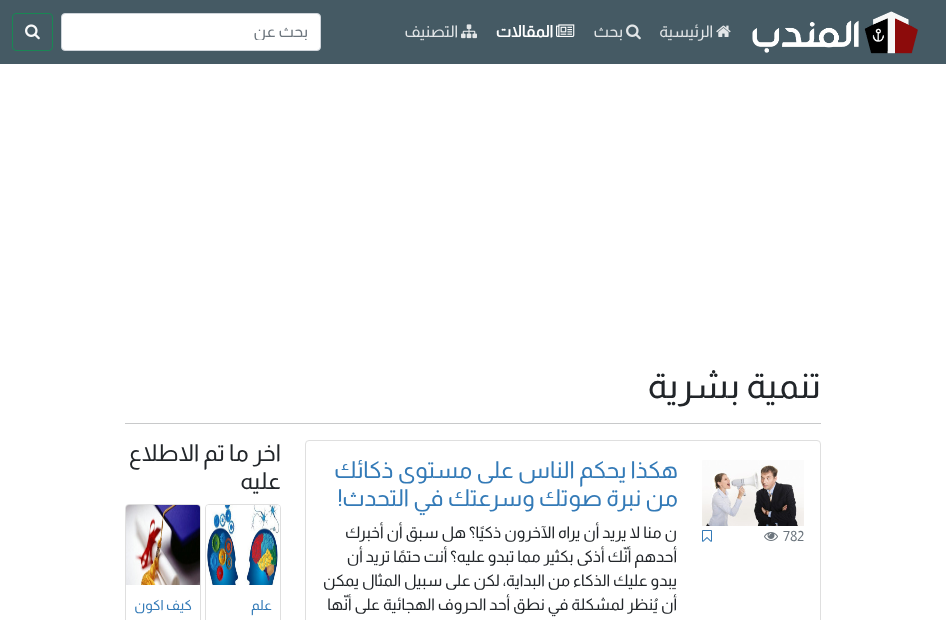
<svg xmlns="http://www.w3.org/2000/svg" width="946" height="620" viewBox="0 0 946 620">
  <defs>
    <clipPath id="clip1"><rect x="89" y="23" width="219" height="17"/></clipPath>
  </defs>
  <rect width="100%" height="100%" fill="#ffffff"/>
  <rect x="0" y="0" width="946" height="64" fill="#455a64"/>
  <image x="752" y="11" width="166" height="43" href="img1.png"/>
  <image x="716" y="25" width="15" height="12" href="img2.png"/>
  <text x="713" y="37" font-family="Almarai" font-size="16" direction="rtl" fill="#e3e6e8">الرئيسية</text>
  <image x="626" y="24" width="15" height="16" href="img3.png"/>
  <text x="623" y="37" font-family="Almarai" font-size="16" direction="rtl" fill="#e3e6e8">بحث</text>
  <image x="556" y="24" width="19" height="13" href="img4.png"/>
  <text x="553" y="37" font-family="Almarai" font-size="16" font-weight="bold" direction="rtl" fill="#ffffff">المقالات</text>
  <image x="461" y="24" width="16" height="15" href="img5.png"/>
  <text x="458" y="37" font-family="Almarai" font-size="16" direction="rtl" fill="#e3e6e8">التصنيف</text>
  <rect x="61.5" y="13.5" width="259" height="37" rx="3.5" fill="#ffffff" stroke="#ced4da"/>
  <g clip-path="url(#clip1)">
    <text x="308" y="37" font-family="Almarai" font-size="16" direction="rtl" fill="#6c757d">بحث عن</text>
  </g>
  <rect x="12.5" y="13.5" width="40" height="37" rx="3.5" fill="none" stroke="#198754"/>
  <image x="25" y="24" width="15" height="16" href="img6.png"/>
  <text x="821" y="398" font-family="Almarai" font-size="36" direction="rtl" fill="#212529">تنمية بشرية</text>
  <rect x="125" y="423" width="696" height="1" fill="#c8c9ca"/>
  <rect x="305.5" y="440.5" width="515" height="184" rx="3.5" fill="none" stroke="#dfdfdf"/>
  <image x="702" y="460" width="102" height="66" href="img7.png"/>
  <text x="783" y="541" font-family="Almarai" font-size="14" fill="#6c757d">782</text>
  <image x="764" y="532" width="14" height="9" href="img8.png"/>
  <image x="702" y="530" width="10" height="12" href="img9.png"/>
  <text x="678" y="478" font-family="Almarai" font-size="23.25" direction="rtl" fill="#337ab7">هكذا يحكم الناس على مستوى ذكائك</text>
  <text x="678" y="506" font-family="Almarai" font-size="23.25" direction="rtl" fill="#337ab7">من نبرة صوتك وسرعتك في التحدث!</text>
  <text x="677" y="538" font-family="Almarai" font-size="16" direction="rtl" fill="#212529">ن منا لا يريد أن يراه الآخرون ذكيًا؟ هل سبق أن أخبرك</text>
  <text x="677" y="562" font-family="Almarai" font-size="16" direction="rtl" fill="#212529">أحدهم أنّك أذكى بكثير مما تبدو عليه؟ أنت حتمًا تريد أن</text>
  <text x="677" y="586" font-family="Almarai" font-size="16" direction="rtl" fill="#212529">يبدو عليك الذكاء من البداية، لكن على سبيل المثال يمكن</text>
  <text x="677" y="610" font-family="Almarai" font-size="16" direction="rtl" fill="#212529">أن يُنظر لمشكلة في نطق أحد الحروف الهجائية على أنّها</text>
  <text x="281" y="461" font-family="Almarai" font-size="23.25" direction="rtl" fill="#212529">اخر ما تم الاطلاع</text>
  <text x="281" y="489" font-family="Almarai" font-size="23.25" direction="rtl" fill="#212529">عليه</text>
  <rect x="205.5" y="504.5" width="75" height="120" rx="3.5" fill="none" stroke="#dfdfdf"/>
  <image x="206" y="505" width="74" height="80" href="img10.png"/>
  <text x="272" y="610" font-family="Almarai" font-size="14" direction="rtl" fill="#337ab7">علم</text>
  <rect x="125.5" y="504.5" width="75" height="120" rx="3.5" fill="none" stroke="#dfdfdf"/>
  <image x="126" y="505" width="74" height="80" href="img11.png"/>
  <text x="192" y="610" font-family="Almarai" font-size="14" direction="rtl" fill="#337ab7">كيف اكون</text>
</svg>
